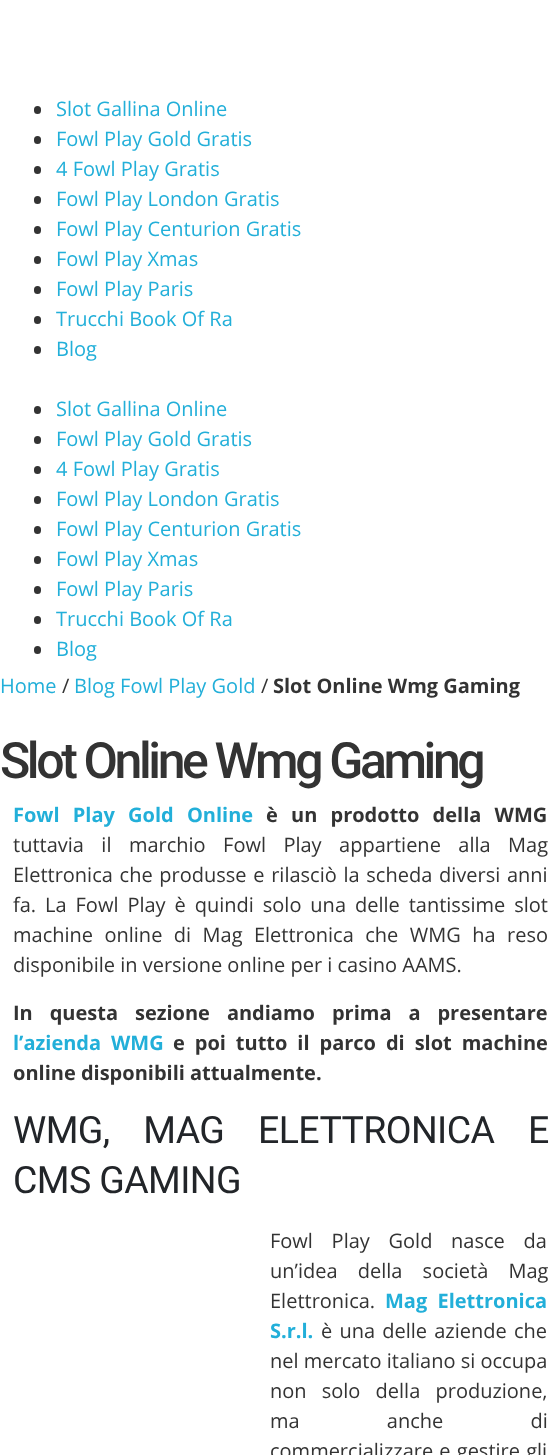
<svg xmlns="http://www.w3.org/2000/svg" width="560" height="1455" viewBox="0 0 560 1455">
  <rect width="100%" height="100%" fill="#ffffff"/>
  <rect x="34" y="106" width="7" height="8" rx="3.5" fill="#333333"/>
  <text x="56" y="116" font-family="Open Sans" font-size="20" fill="#22afd9">Slot Gallina Online</text>
  <rect x="34" y="136" width="7" height="8" rx="3.5" fill="#333333"/>
  <text x="56" y="146" font-family="Open Sans" font-size="20" fill="#22afd9">Fowl Play Gold Gratis</text>
  <rect x="34" y="166" width="7" height="8" rx="3.5" fill="#333333"/>
  <text x="56" y="176" font-family="Open Sans" font-size="20" fill="#22afd9">4 Fowl Play Gratis</text>
  <rect x="34" y="196" width="7" height="8" rx="3.5" fill="#333333"/>
  <text x="56" y="206" font-family="Open Sans" font-size="20" fill="#22afd9">Fowl Play London Gratis</text>
  <rect x="34" y="226" width="7" height="8" rx="3.5" fill="#333333"/>
  <text x="56" y="236" font-family="Open Sans" font-size="20" fill="#22afd9">Fowl Play Centurion Gratis</text>
  <rect x="34" y="256" width="7" height="8" rx="3.5" fill="#333333"/>
  <text x="56" y="266" font-family="Open Sans" font-size="20" fill="#22afd9">Fowl Play Xmas</text>
  <rect x="34" y="286" width="7" height="8" rx="3.5" fill="#333333"/>
  <text x="56" y="296" font-family="Open Sans" font-size="20" fill="#22afd9">Fowl Play Paris</text>
  <rect x="34" y="316" width="7" height="8" rx="3.5" fill="#333333"/>
  <text x="56" y="326" font-family="Open Sans" font-size="20" fill="#22afd9">Trucchi Book Of Ra</text>
  <rect x="34" y="346" width="7" height="8" rx="3.5" fill="#333333"/>
  <text x="56" y="356" font-family="Open Sans" font-size="20" fill="#22afd9">Blog</text>
  <rect x="34" y="406" width="7" height="8" rx="3.5" fill="#333333"/>
  <text x="56" y="416" font-family="Open Sans" font-size="20" fill="#22afd9">Slot Gallina Online</text>
  <rect x="34" y="436" width="7" height="8" rx="3.5" fill="#333333"/>
  <text x="56" y="446" font-family="Open Sans" font-size="20" fill="#22afd9">Fowl Play Gold Gratis</text>
  <rect x="34" y="466" width="7" height="8" rx="3.5" fill="#333333"/>
  <text x="56" y="476" font-family="Open Sans" font-size="20" fill="#22afd9">4 Fowl Play Gratis</text>
  <rect x="34" y="496" width="7" height="8" rx="3.5" fill="#333333"/>
  <text x="56" y="506" font-family="Open Sans" font-size="20" fill="#22afd9">Fowl Play London Gratis</text>
  <rect x="34" y="526" width="7" height="8" rx="3.5" fill="#333333"/>
  <text x="56" y="536" font-family="Open Sans" font-size="20" fill="#22afd9">Fowl Play Centurion Gratis</text>
  <rect x="34" y="556" width="7" height="8" rx="3.5" fill="#333333"/>
  <text x="56" y="566" font-family="Open Sans" font-size="20" fill="#22afd9">Fowl Play Xmas</text>
  <rect x="34" y="586" width="7" height="8" rx="3.5" fill="#333333"/>
  <text x="56" y="596" font-family="Open Sans" font-size="20" fill="#22afd9">Fowl Play Paris</text>
  <rect x="34" y="616" width="7" height="8" rx="3.5" fill="#333333"/>
  <text x="56" y="626" font-family="Open Sans" font-size="20" fill="#22afd9">Trucchi Book Of Ra</text>
  <rect x="34" y="646" width="7" height="8" rx="3.5" fill="#333333"/>
  <text x="56" y="656" font-family="Open Sans" font-size="20" fill="#22afd9">Blog</text>
  <text x="0" y="693" font-family="Open Sans" font-size="20" fill="#22afd9">Home</text>
  <text x="62" y="693" font-family="Open Sans" font-size="20" fill="#333333">/</text>
  <text x="74" y="693" font-family="Open Sans" font-size="20" fill="#22afd9">Blog Fowl Play Gold</text>
  <text x="261" y="693" font-family="Open Sans" font-size="20" fill="#333333">/</text>
  <text x="273" y="693" font-family="Open Sans" font-size="20" font-weight="bold" fill="#333333">Slot Online Wmg Gaming</text>
  <text x="0" y="778" font-family="Roboto" font-size="50" font-weight="500" letter-spacing="-3.4" fill="#333333">Slot Online Wmg Gaming</text>
  <text x="13" y="822" word-spacing="8" font-family="Open Sans" font-size="20" font-weight="bold" fill="#22afd9">Fowl Play Gold Online</text>
  <text x="266" y="822" word-spacing="8" font-family="Open Sans" font-size="20" font-weight="bold" fill="#333333">è un prodotto della WMG</text>
  <text x="13" y="852" word-spacing="12.25" font-family="Open Sans" font-size="20" fill="#333333">tuttavia il marchio Fowl Play appartiene alla Mag</text>
  <text x="13" y="882" word-spacing="1.5" font-family="Open Sans" font-size="20" fill="#333333">Elettronica che produsse e rilasciò la scheda diversi anni</text>
  <text x="13" y="912" word-spacing="3.75" font-family="Open Sans" font-size="20" fill="#333333">fa. La Fowl Play è quindi solo una delle tantissime slot</text>
  <text x="13" y="942" word-spacing="6.25" font-family="Open Sans" font-size="20" fill="#333333">machine online di Mag Elettronica che WMG ha reso</text>
  <text x="13" y="972" font-family="Open Sans" font-size="20" fill="#333333">disponibile in versione online per i casino AAMS.</text>
  <text x="13" y="1020" word-spacing="11.75" font-family="Open Sans" font-size="20" font-weight="bold" fill="#333333">In questa sezione andiamo prima a presentare</text>
  <text x="13" y="1050" word-spacing="4.75" font-family="Open Sans" font-size="20" font-weight="bold" fill="#22afd9">l’azienda WMG</text>
  <text x="173" y="1050" word-spacing="4.75" font-family="Open Sans" font-size="20" font-weight="bold" fill="#333333">e poi tutto il parco di slot machine</text>
  <text x="13" y="1080" font-family="Open Sans" font-size="20" font-weight="bold" fill="#333333">online disponibili attualmente.</text>
  <text x="13" y="1143" word-spacing="25" font-family="Roboto" font-size="37.5" letter-spacing="-0.6" fill="#222529">WMG, MAG ELETTRONICA E</text>
  <text x="13" y="1193" font-family="Roboto" font-size="37.5" letter-spacing="-0.6" fill="#222529">CMS GAMING</text>
  <text x="270" y="1248" word-spacing="13.5" font-family="Open Sans" font-size="20" fill="#333333">Fowl Play Gold nasce da</text>
  <text x="270" y="1278" word-spacing="15" font-family="Open Sans" font-size="20" fill="#333333">un’idea della società Mag</text>
  <text x="270" y="1308" font-family="Open Sans" font-size="20" fill="#333333">Elettronica.</text>
  <text x="385" y="1308" word-spacing="5" font-family="Open Sans" font-size="20" font-weight="bold" fill="#22afd9">Mag Elettronica</text>
  <text x="270" y="1338" font-family="Open Sans" font-size="20" font-weight="bold" fill="#22afd9">S.r.l.</text>
  <text x="321" y="1338" word-spacing="2" font-family="Open Sans" font-size="20" fill="#333333">è una delle aziende che</text>
  <text x="270" y="1368" font-family="Open Sans" font-size="20" fill="#333333">nel mercato italiano si occupa</text>
  <text x="270" y="1398" word-spacing="10" font-family="Open Sans" font-size="20" fill="#333333">non solo della produzione,</text>
  <text x="270" y="1428" word-spacing="82" font-family="Open Sans" font-size="20" fill="#333333">ma anche di</text>
  <text x="270" y="1458" word-spacing="1" font-family="Open Sans" font-size="20" fill="#333333">commercializzare e gestire gli</text>
</svg>
